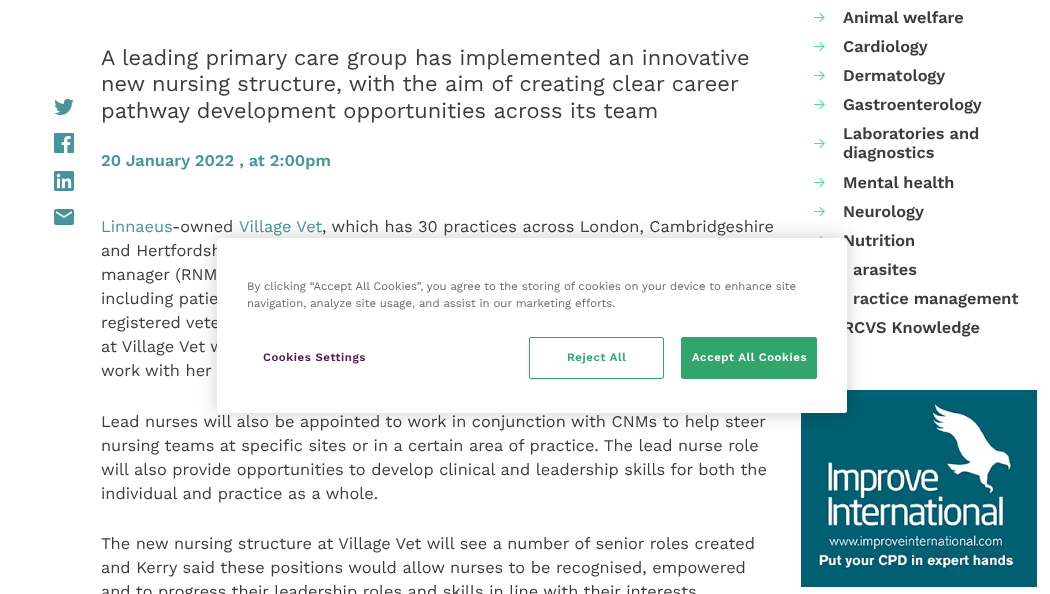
<svg xmlns="http://www.w3.org/2000/svg" width="1050" height="594" viewBox="0 0 1050 594">
  <defs>
    <filter id="blur1" x="-50%" y="-200%" width="200%" height="500%"><feGaussianBlur stdDeviation="9"/></filter>
  </defs>
  <rect width="100%" height="100%" fill="#ffffff"/>
  <image x="54" y="99" width="20" height="16" href="img1.png"/>
  <image x="54" y="133" width="20" height="20" href="img2.png"/>
  <image x="54" y="171" width="20" height="20" href="img3.png"/>
  <image x="54" y="209" width="20" height="16" href="img4.png"/>
  <text x="101" y="65" font-family="Work Sans" font-size="21.8" fill="#3c3c3c">A leading primary care group has implemented an innovative</text>
  <text x="101" y="91" font-family="Work Sans" font-size="21.8" fill="#3c3c3c">new nursing structure, with the aim of creating clear career</text>
  <text x="101" y="118" font-family="Work Sans" font-size="21.8" fill="#3c3c3c">pathway development opportunities across its team</text>
  <text x="101" y="166" font-family="Work Sans" font-size="16.35" font-weight="600" fill="#47959b">20 January 2022 , at 2:00pm</text>
  <text x="101" y="232" font-family="Work Sans" font-size="16.35" fill="#47959b">Linnaeus</text>
  <text x="172" y="232" font-family="Work Sans" font-size="16.35" fill="#3c3c3c">-owned</text>
  <text x="239" y="232" font-family="Work Sans" font-size="16.35" fill="#47959b">Village Vet</text>
  <text x="322" y="232" font-family="Work Sans" font-size="16.35" fill="#3c3c3c">, which has 30 practices across London, Cambridgeshire</text>
  <text x="101" y="256" font-family="Work Sans" font-size="16.35" fill="#3c3c3c">and Hertfordsh</text>
  <text x="101" y="280" font-family="Work Sans" font-size="16.35" fill="#3c3c3c">manager (RNM</text>
  <text x="101" y="304" font-family="Work Sans" font-size="16.35" fill="#3c3c3c">including patie</text>
  <text x="101" y="328" font-family="Work Sans" font-size="16.35" fill="#3c3c3c">registered vete</text>
  <text x="101" y="352" font-family="Work Sans" font-size="16.35" fill="#3c3c3c">at Village Vet w</text>
  <text x="101" y="376" font-family="Work Sans" font-size="16.35" fill="#3c3c3c">work with her</text>
  <text x="101" y="427" font-family="Work Sans" font-size="16.35" fill="#3c3c3c">Lead nurses will also be appointed to work in conjunction with CNMs to help steer</text>
  <text x="101" y="451" font-family="Work Sans" font-size="16.35" fill="#3c3c3c">nursing teams at specific sites or in a certain area of practice. The lead nurse role</text>
  <text x="101" y="475" font-family="Work Sans" font-size="16.35" fill="#3c3c3c">will also provide opportunities to develop clinical and leadership skills for both the</text>
  <text x="101" y="499" font-family="Work Sans" font-size="16.35" fill="#3c3c3c">individual and practice as a whole.</text>
  <text x="101" y="549" font-family="Work Sans" font-size="16.35" fill="#3c3c3c">The new nursing structure at Village Vet will see a number of senior roles created</text>
  <text x="101" y="573" font-family="Work Sans" font-size="16.35" fill="#3c3c3c">and Kerry said these positions would allow nurses to be recognised, empowered</text>
  <text x="101" y="597" font-family="Work Sans" font-size="16.35" fill="#3c3c3c">and to progress their leadership roles and skills in line with their interests</text>
  <image x="814" y="13" width="11" height="9" href="img5.png"/>
  <text x="843" y="23" font-family="Work Sans" font-size="16.35" font-weight="600" fill="#3c3c3c">Animal welfare</text>
  <image x="814" y="42" width="11" height="9" href="img5.png"/>
  <text x="843" y="52" font-family="Work Sans" font-size="16.35" font-weight="600" fill="#3c3c3c">Cardiology</text>
  <image x="814" y="71" width="11" height="9" href="img5.png"/>
  <text x="843" y="81" font-family="Work Sans" font-size="16.35" font-weight="600" fill="#3c3c3c">Dermatology</text>
  <image x="814" y="100" width="11" height="9" href="img5.png"/>
  <text x="843" y="110" font-family="Work Sans" font-size="16.35" font-weight="600" fill="#3c3c3c">Gastroenterology</text>
  <text x="843" y="139" font-family="Work Sans" font-size="16.35" font-weight="600" fill="#3c3c3c">Laboratories and</text>
  <image x="814" y="139" width="11" height="9" href="img5.png"/>
  <text x="843" y="158" font-family="Work Sans" font-size="16.35" font-weight="600" fill="#3c3c3c">diagnostics</text>
  <image x="814" y="178" width="11" height="9" href="img5.png"/>
  <text x="843" y="188" font-family="Work Sans" font-size="16.35" font-weight="600" fill="#3c3c3c">Mental health</text>
  <image x="814" y="207" width="11" height="9" href="img5.png"/>
  <text x="843" y="217" font-family="Work Sans" font-size="16.35" font-weight="600" fill="#3c3c3c">Neurology</text>
  <image x="819" y="236" width="4" height="2" href="img6.png"/>
  <text x="843" y="246" font-family="Work Sans" font-size="16.35" font-weight="600" fill="#3c3c3c">Nutrition</text>
  <text x="853" y="275" font-family="Work Sans" font-size="16.35" font-weight="600" fill="#3c3c3c">arasites</text>
  <text x="853" y="304" font-family="Work Sans" font-size="16.35" font-weight="600" fill="#3c3c3c">ractice management</text>
  <text x="843" y="333" font-family="Work Sans" font-size="16.35" font-weight="600" fill="#3c3c3c">RCVS Knowledge</text>
  <image x="801" y="390" width="236" height="197" href="img7.png"/>
  <rect x="217" y="238" width="630" height="175" rx="2.5" fill="#000000" fill-opacity="0.2" filter="url(#blur1)"/>
  <rect x="217" y="238" width="630" height="175" rx="2.5" fill="#ffffff"/>
  <text x="247" y="290" font-family="Work Sans" font-size="11.4" fill="#696969">By clicking “Accept All Cookies”, you agree to the storing of cookies on your device to enhance site</text>
  <text x="247" y="307" font-family="Work Sans" font-size="11.4" fill="#696969">navigation, analyze site usage, and assist in our marketing efforts.</text>
  <text x="263" y="361" font-family="Work Sans" font-size="11.4" font-weight="600" letter-spacing="0.6" fill="#50154b">Cookies Settings</text>
  <rect x="529.5" y="337.5" width="134" height="41" rx="1.5" fill="none" stroke="#31a56b"/>
  <text x="567" y="361" font-family="Work Sans" font-size="11.4" font-weight="600" letter-spacing="0.6" fill="#31a56b">Reject All</text>
  <rect x="681.5" y="337.5" width="135" height="41" rx="1.5" fill="#31a56b" stroke="#31a56b"/>
  <text x="692" y="361" font-family="Work Sans" font-size="11.4" font-weight="600" letter-spacing="0.6" fill="#ffffff">Accept All Cookies</text>
</svg>
